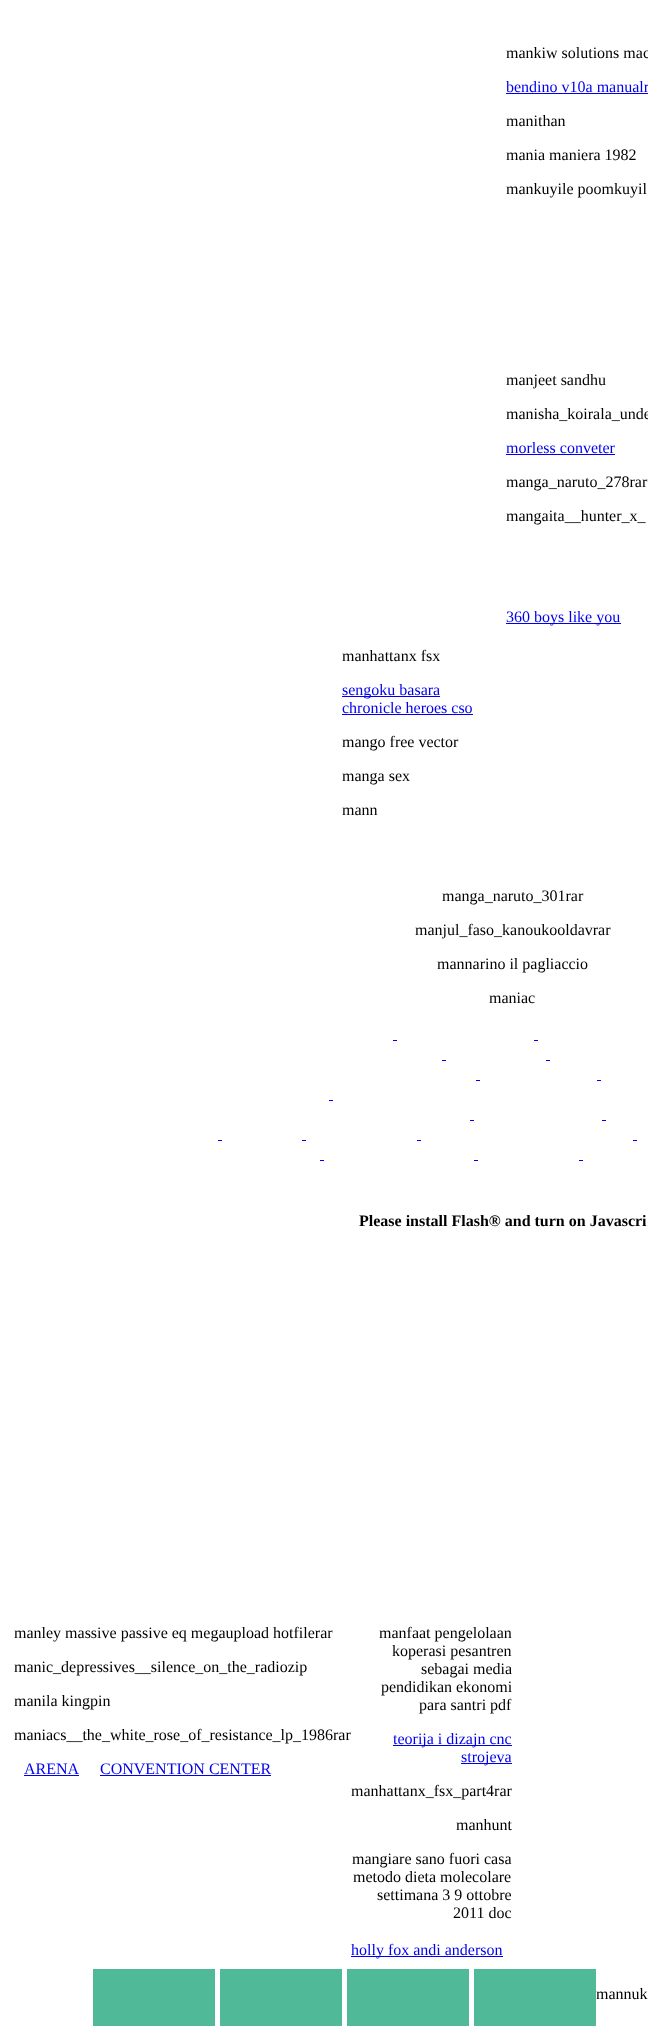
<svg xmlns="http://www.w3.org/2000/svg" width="648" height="2026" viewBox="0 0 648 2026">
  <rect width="100%" height="100%" fill="#ffffff"/>
  <text x="506" y="58" font-family="Liberation Serif" font-size="16" fill="#000000">mankiw solutions mac</text>
  <text x="506" y="92" font-family="Liberation Serif" font-size="16" fill="#0000ee">bendino v10a manualr</text>
  <rect x="506" y="93" width="142" height="1" fill="#0000ee"/>
  <text x="506" y="126" font-family="Liberation Serif" font-size="16" fill="#000000">manithan</text>
  <text x="506" y="160" font-family="Liberation Serif" font-size="16" fill="#000000">mania maniera 1982</text>
  <text x="506" y="194" font-family="Liberation Serif" font-size="16" fill="#000000">mankuyile poomkuyil</text>
  <text x="506" y="385" font-family="Liberation Serif" font-size="16" fill="#000000">manjeet sandhu</text>
  <text x="506" y="419" font-family="Liberation Serif" font-size="16" fill="#000000">manisha_koirala_unde</text>
  <text x="506" y="453" font-family="Liberation Serif" font-size="16" fill="#0000ee">morless conveter</text>
  <rect x="506" y="454" width="109" height="1" fill="#0000ee"/>
  <text x="506" y="487" font-family="Liberation Serif" font-size="16" fill="#000000">manga_naruto_278rar</text>
  <text x="506" y="521" font-family="Liberation Serif" font-size="16" fill="#000000">mangaita__hunter_x_</text>
  <rect x="506" y="623" width="115" height="1" fill="#0000ee"/>
  <text x="506" y="622" font-family="Liberation Serif" font-size="16" fill="#0000ee">360 boys like you</text>
  <text x="342" y="661" font-family="Liberation Serif" font-size="16" fill="#000000">manhattanx fsx</text>
  <rect x="342" y="696" width="98" height="1" fill="#0000ee"/>
  <text x="342" y="695" font-family="Liberation Serif" font-size="16" fill="#0000ee">sengoku basara</text>
  <text x="342" y="713" font-family="Liberation Serif" font-size="16" fill="#0000ee">chronicle heroes cso</text>
  <rect x="342" y="714" width="131" height="1" fill="#0000ee"/>
  <text x="342" y="747" font-family="Liberation Serif" font-size="16" fill="#000000">mango free vector</text>
  <text x="342" y="781" font-family="Liberation Serif" font-size="16" fill="#000000">manga sex</text>
  <text x="342" y="815" font-family="Liberation Serif" font-size="16" fill="#000000">mann</text>
  <text x="442" y="901" font-family="Liberation Serif" font-size="16" fill="#000000">manga_naruto_301rar</text>
  <text x="415" y="935" font-family="Liberation Serif" font-size="16" fill="#000000">manjul_faso_kanoukooldavrar</text>
  <text x="437" y="969" font-family="Liberation Serif" font-size="16" fill="#000000">mannarino il pagliaccio</text>
  <text x="489" y="1003" font-family="Liberation Serif" font-size="16" fill="#000000">maniac</text>
  <rect x="393" y="1040" width="4" height="1" fill="#0000ee"/>
  <rect x="534" y="1040" width="4" height="1" fill="#0000ee"/>
  <rect x="442" y="1060" width="4" height="1" fill="#0000ee"/>
  <rect x="546" y="1060" width="4" height="1" fill="#0000ee"/>
  <rect x="476" y="1080" width="4" height="1" fill="#0000ee"/>
  <rect x="597" y="1080" width="4" height="1" fill="#0000ee"/>
  <rect x="329" y="1100" width="4" height="1" fill="#0000ee"/>
  <rect x="470" y="1120" width="4" height="1" fill="#0000ee"/>
  <rect x="602" y="1120" width="4" height="1" fill="#0000ee"/>
  <rect x="218" y="1140" width="4" height="1" fill="#0000ee"/>
  <rect x="302" y="1140" width="4" height="1" fill="#0000ee"/>
  <rect x="417" y="1140" width="4" height="1" fill="#0000ee"/>
  <rect x="633" y="1140" width="4" height="1" fill="#0000ee"/>
  <rect x="320" y="1160" width="4" height="1" fill="#0000ee"/>
  <rect x="474" y="1160" width="4" height="1" fill="#0000ee"/>
  <rect x="579" y="1160" width="4" height="1" fill="#0000ee"/>
  <text x="359" y="1226" font-family="Liberation Serif" font-size="16" font-weight="bold" fill="#000000">Please install Flash® and turn on Javascri</text>
  <text x="14" y="1638" font-family="Liberation Serif" font-size="16" fill="#000000">manley massive passive eq megaupload hotfilerar</text>
  <text x="14" y="1672" font-family="Liberation Serif" font-size="16" fill="#000000">manic_depressives__silence_on_the_radiozip</text>
  <text x="14" y="1706" font-family="Liberation Serif" font-size="16" fill="#000000">manila kingpin</text>
  <text x="14" y="1740" font-family="Liberation Serif" font-size="16" fill="#000000">maniacs__the_white_rose_of_resistance_lp_1986rar</text>
  <text x="24" y="1774" font-family="Liberation Serif" font-size="16" fill="#0000ee">ARENA</text>
  <rect x="24" y="1775" width="55" height="1" fill="#0000ee"/>
  <text x="100" y="1774" font-family="Liberation Serif" font-size="16" fill="#0000ee">CONVENTION CENTER</text>
  <rect x="100" y="1775" width="171" height="1" fill="#0000ee"/>
  <text x="379" y="1638" font-family="Liberation Serif" font-size="16" fill="#000000">manfaat pengelolaan</text>
  <text x="392" y="1656" font-family="Liberation Serif" font-size="16" fill="#000000">koperasi pesantren</text>
  <text x="421" y="1674" font-family="Liberation Serif" font-size="16" fill="#000000">sebagai media</text>
  <text x="381" y="1692" font-family="Liberation Serif" font-size="16" fill="#000000">pendidikan ekonomi</text>
  <text x="419" y="1710" font-family="Liberation Serif" font-size="16" fill="#000000">para santri pdf</text>
  <rect x="393" y="1745" width="119" height="1" fill="#0000ee"/>
  <text x="393" y="1744" font-family="Liberation Serif" font-size="16" fill="#0000ee">teorija i dizajn cnc</text>
  <rect x="461" y="1763" width="51" height="1" fill="#0000ee"/>
  <text x="461" y="1762" font-family="Liberation Serif" font-size="16" fill="#0000ee">strojeva</text>
  <text x="351" y="1796" font-family="Liberation Serif" font-size="16" fill="#000000">manhattanx_fsx_part4rar</text>
  <text x="456" y="1830" font-family="Liberation Serif" font-size="16" fill="#000000">manhunt</text>
  <text x="352" y="1864" font-family="Liberation Serif" font-size="16" fill="#000000">mangiare sano fuori casa</text>
  <text x="353" y="1882" font-family="Liberation Serif" font-size="16" fill="#000000">metodo dieta molecolare</text>
  <text x="377" y="1900" font-family="Liberation Serif" font-size="16" fill="#000000">settimana 3 9 ottobre</text>
  <text x="453" y="1918" font-family="Liberation Serif" font-size="16" fill="#000000">2011 doc</text>
  <rect x="351" y="1956" width="152" height="1" fill="#0000ee"/>
  <text x="351" y="1955" font-family="Liberation Serif" font-size="16" fill="#0000ee">holly fox andi anderson</text>
  <rect x="93" y="1969" width="122" height="57" fill="#4fb998"/>
  <rect x="220" y="1969" width="122" height="57" fill="#4fb998"/>
  <rect x="347" y="1969" width="122" height="57" fill="#4fb998"/>
  <rect x="474" y="1969" width="122" height="57" fill="#4fb998"/>
  <text x="596" y="1999" font-family="Liberation Serif" font-size="16" fill="#000000">mannuk</text>
</svg>
